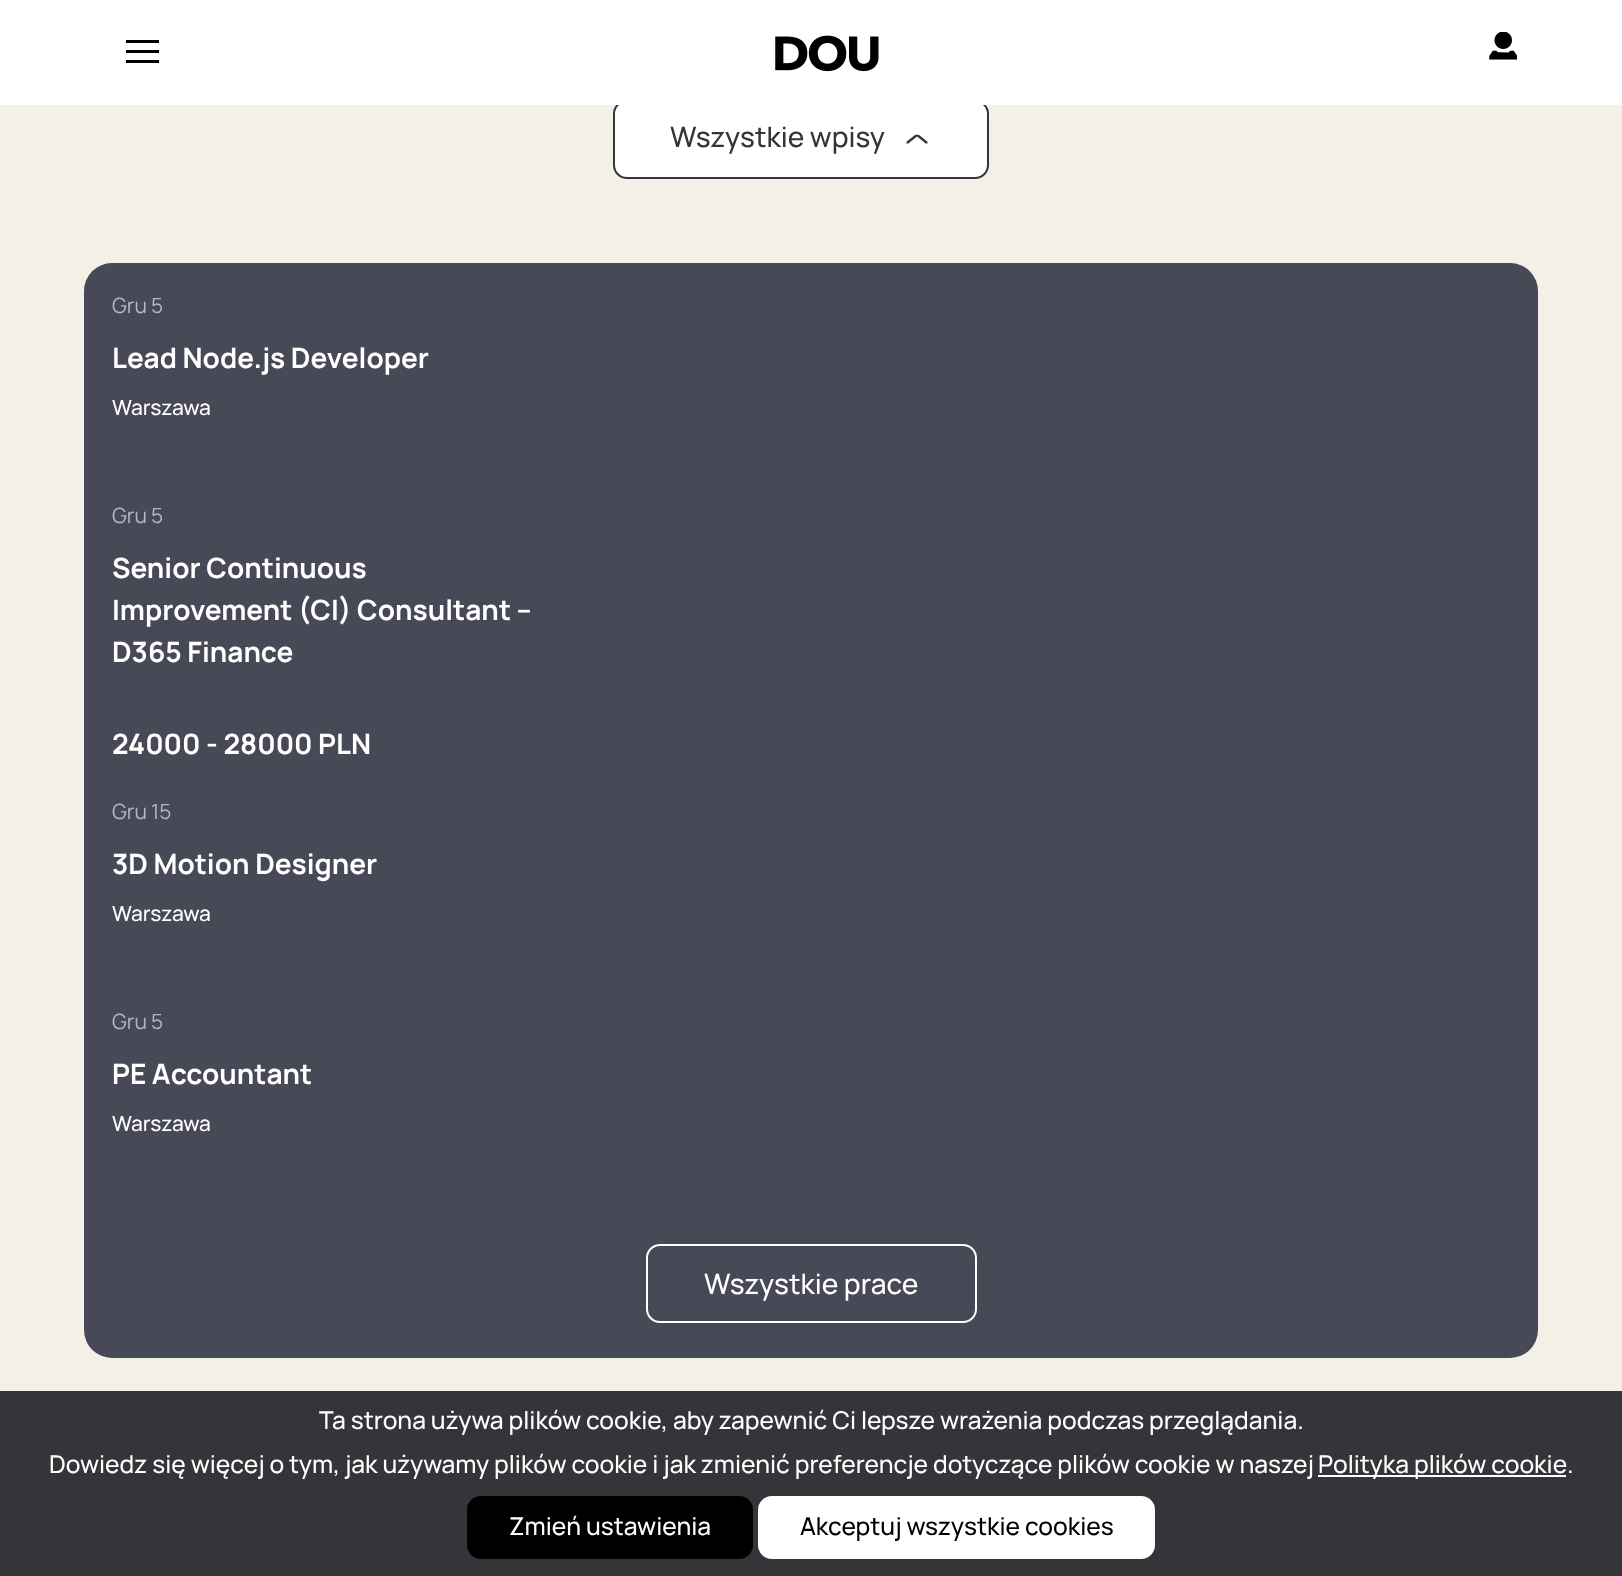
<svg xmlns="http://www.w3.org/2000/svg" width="1622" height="1576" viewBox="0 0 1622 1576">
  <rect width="100%" height="100%" fill="#f3f0e8"/>
  <rect x="614" y="101" width="374" height="77" rx="13" fill="#ffffff" stroke="#353539" stroke-width="2"/>
  <rect x="0" y="0" width="1622" height="105" fill="#ffffff"/>
  <rect x="126" y="40" width="33" height="3" fill="#000000"/>
  <rect x="126" y="50" width="33" height="3" fill="#000000"/>
  <rect x="126" y="60" width="33" height="3" fill="#000000"/>
  <image x="775" y="35" width="104" height="37" href="img1.png"/>
  <image x="1489" y="32" width="28" height="28" href="img2.png"/>
  <text x="670" y="147" font-family="Manrope" font-size="28" font-weight="500" fill="#353539">Wszystkie wpisy</text>
  <image x="906" y="134" width="22" height="10" href="img3.png"/>
  <rect x="84" y="263" width="1454" height="1095" rx="28" fill="#484956"/>
  <text x="112" y="313" font-family="Manrope" font-size="21" fill="#b1b8c0">Gru 5</text>
  <text x="112" y="368" font-family="Manrope" font-size="28" font-weight="bold" fill="#ffffff">Lead Node.js Developer</text>
  <text x="112" y="415" font-family="Manrope" font-size="21" font-weight="500" fill="#ffffff">Warszawa</text>
  <text x="112" y="523" font-family="Manrope" font-size="21" fill="#b1b8c0">Gru 5</text>
  <text x="112" y="578" font-family="Manrope" font-size="28" font-weight="bold" fill="#ffffff">Senior Continuous</text>
  <text x="112" y="620" font-family="Manrope" font-size="28" font-weight="bold" fill="#ffffff">Improvement (CI) Consultant –</text>
  <text x="112" y="662" font-family="Manrope" font-size="28" font-weight="bold" fill="#ffffff">D365 Finance</text>
  <text x="112" y="754" font-family="Manrope" font-size="28" font-weight="bold" fill="#ffffff">24000 - 28000 PLN</text>
  <text x="112" y="819" font-family="Manrope" font-size="21" fill="#b1b8c0">Gru 15</text>
  <text x="112" y="874" font-family="Manrope" font-size="28" font-weight="bold" fill="#ffffff">3D Motion Designer</text>
  <text x="112" y="921" font-family="Manrope" font-size="21" font-weight="500" fill="#ffffff">Warszawa</text>
  <text x="112" y="1029" font-family="Manrope" font-size="21" fill="#b1b8c0">Gru 5</text>
  <text x="112" y="1084" font-family="Manrope" font-size="28" font-weight="bold" fill="#ffffff">PE Accountant</text>
  <text x="112" y="1131" font-family="Manrope" font-size="21" font-weight="500" fill="#ffffff">Warszawa</text>
  <rect x="647" y="1245" width="329" height="77" rx="13" fill="none" stroke="#ffffff" stroke-width="2"/>
  <text x="704" y="1294" font-family="Manrope" font-size="28" font-weight="500" fill="#ffffff">Wszystkie prace</text>
  <rect x="0" y="1391" width="1622" height="185" fill="#353539"/>
  <text x="319" y="1429" font-family="Manrope" font-size="24.5" font-weight="500" fill="#ffffff">Ta strona używa plików cookie, aby zapewnić Ci lepsze wrażenia podczas przeglądania.</text>
  <text x="49" y="1473" font-family="Manrope" font-size="24.5" font-weight="500" fill="#ffffff">Dowiedz się więcej o tym, jak używamy plików cookie i jak zmienić preferencje dotyczące plików cookie w naszej</text>
  <rect x="1318" y="1475" width="248" height="2" fill="#ffffff"/>
  <text x="1318" y="1473" font-family="Manrope" font-size="24.5" font-weight="500" fill="#ffffff">Polityka plików cookie</text>
  <text x="1567" y="1473" font-family="Manrope" font-size="24.5" font-weight="500" fill="#ffffff">.</text>
  <rect x="467" y="1496" width="286" height="63" rx="14" fill="#000000"/>
  <text x="509" y="1535" font-family="Manrope" font-size="24.5" font-weight="500" fill="#ffffff">Zmień ustawienia</text>
  <rect x="758" y="1496" width="397" height="63" rx="14" fill="#ffffff"/>
  <text x="800" y="1535" font-family="Manrope" font-size="24.5" font-weight="500" fill="#000000">Akceptuj wszystkie cookies</text>
</svg>
